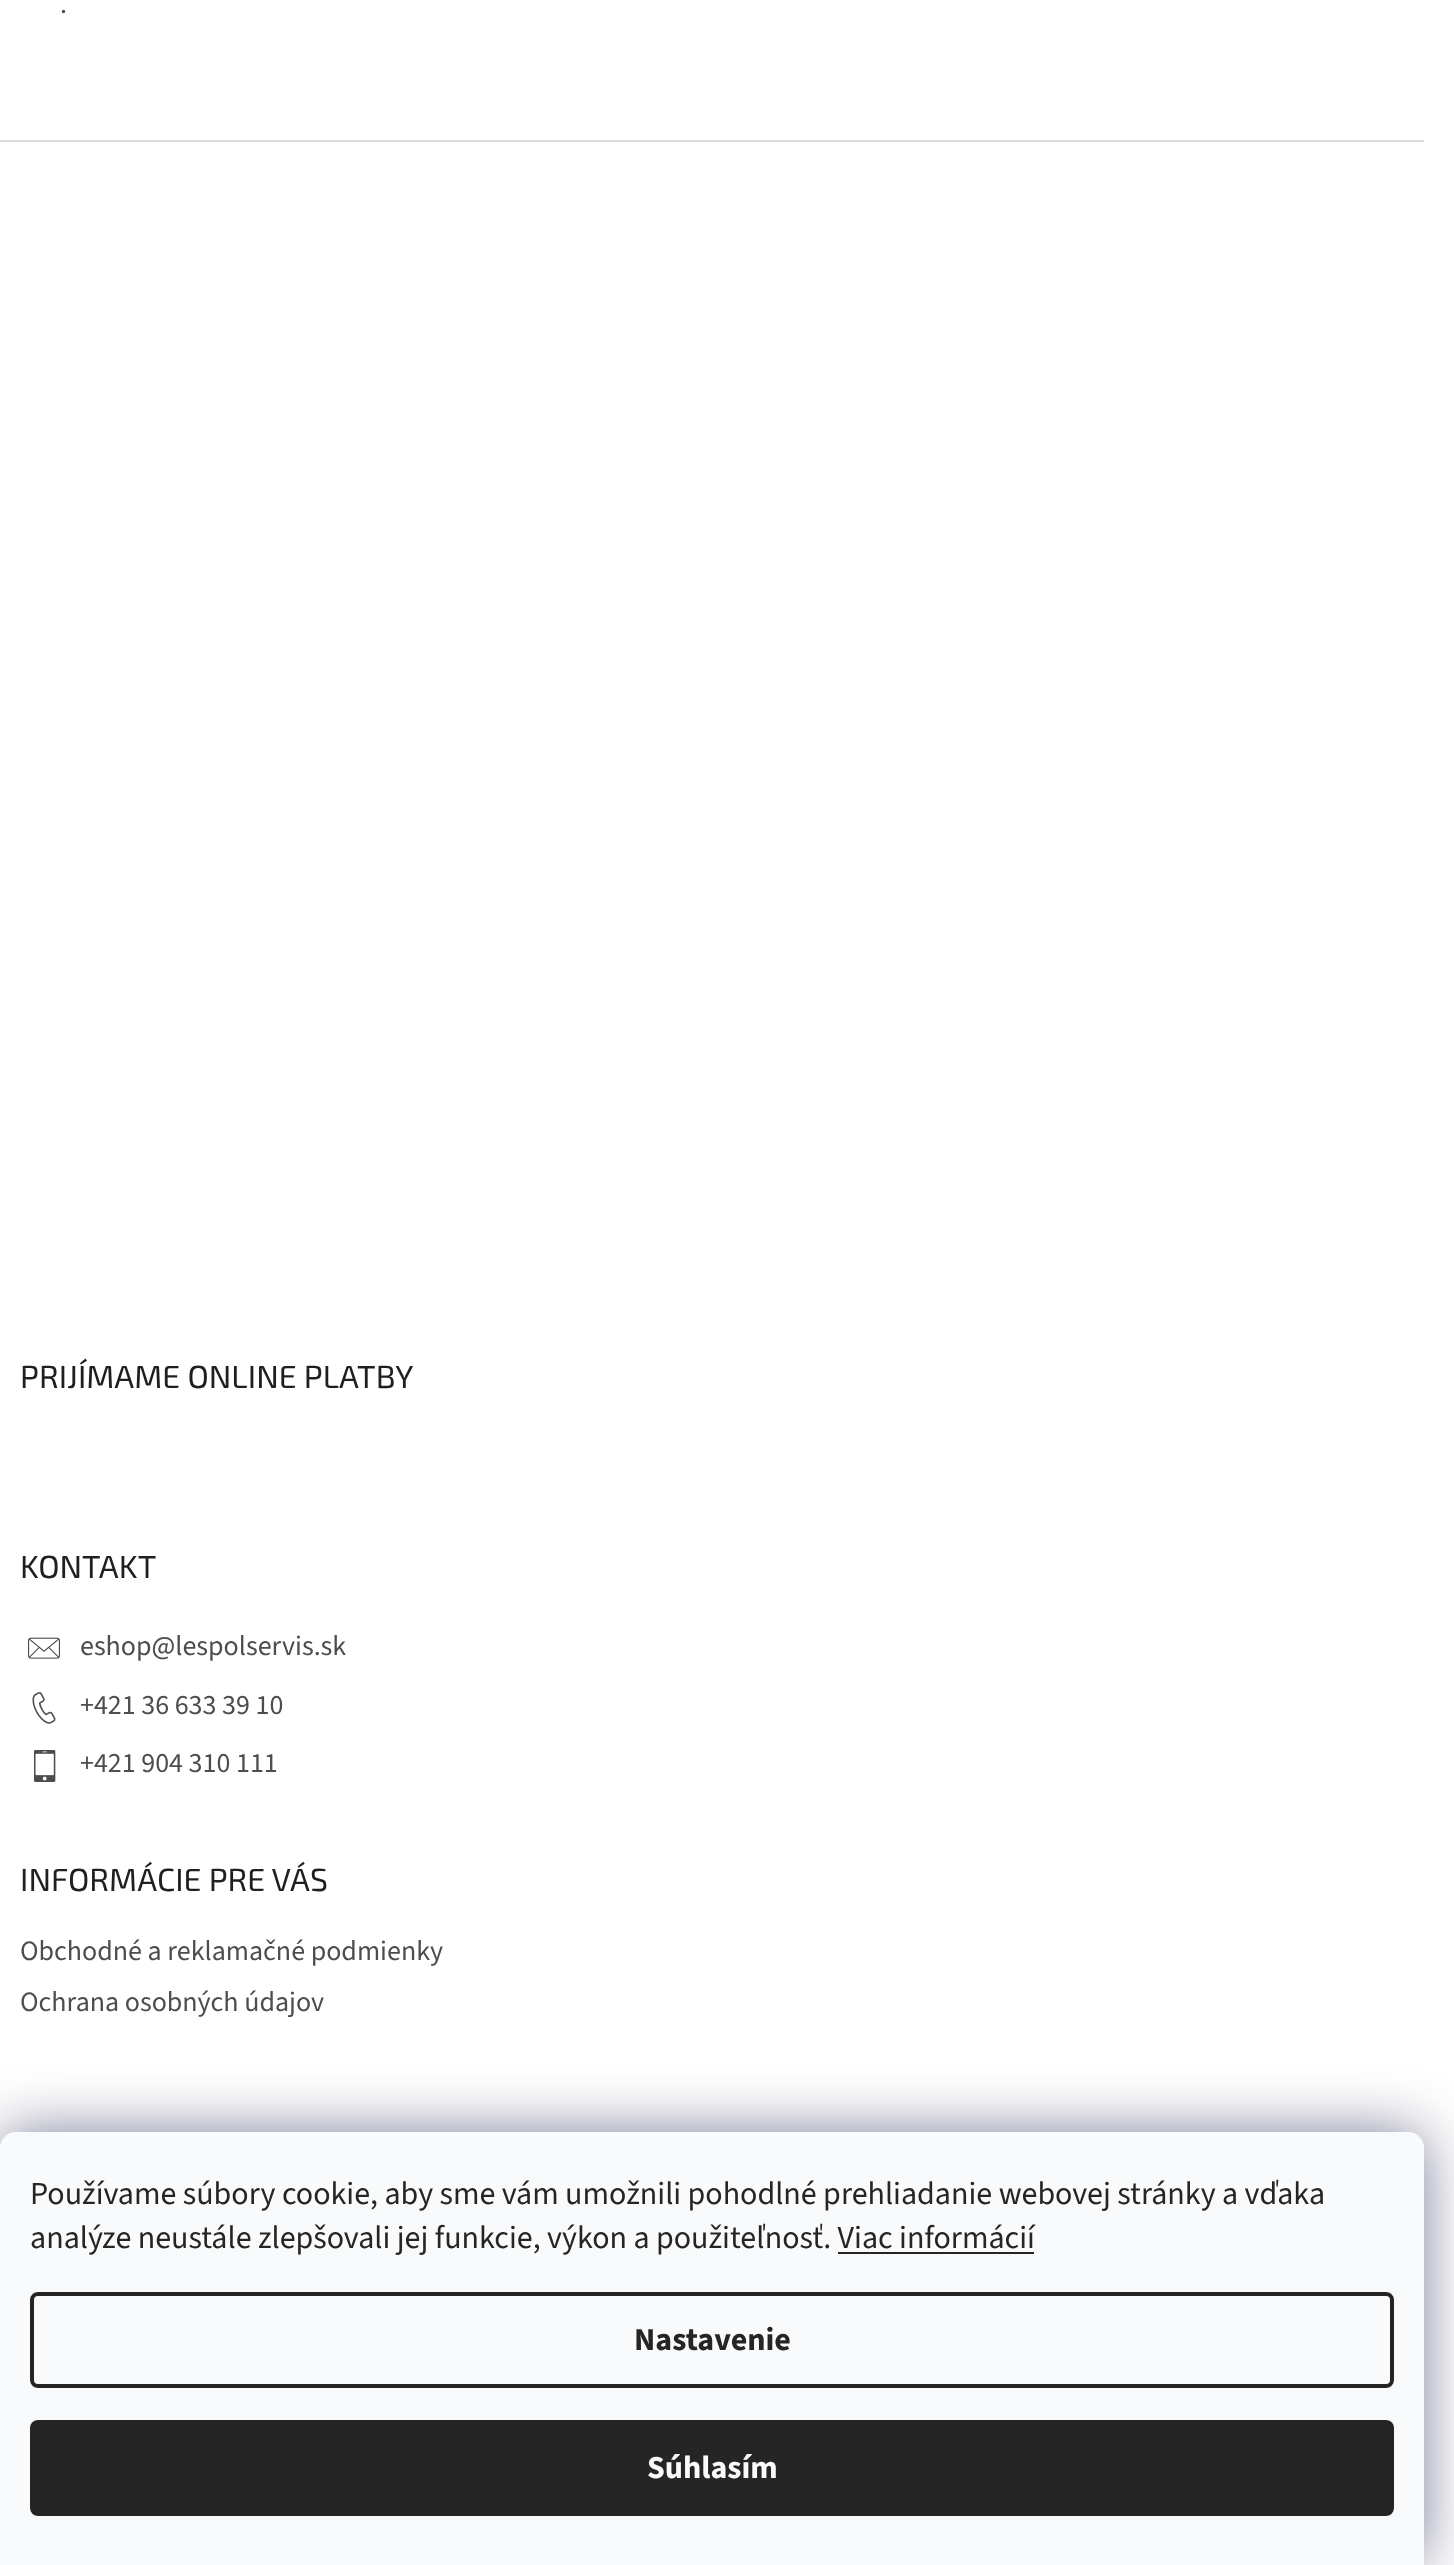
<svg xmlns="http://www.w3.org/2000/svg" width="1454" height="2565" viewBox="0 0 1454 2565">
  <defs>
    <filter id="blur1" x="-50%" y="-200%" width="200%" height="500%"><feGaussianBlur stdDeviation="30"/></filter>
  </defs>
  <rect width="100%" height="100%" fill="#ffffff"/>
  <text x="60" y="13" font-family="'Source Sans 3'" font-size="28" fill="#4d4d4d">.</text>
  <rect x="0" y="140" width="1424" height="2" fill="#dadada"/>
  <text x="20" y="1388" font-family="'Exo 2'" font-size="32" fill="#1f1f1f">PRIJÍMAME ONLINE PLATBY</text>
  <text x="20" y="1578" font-family="'Exo 2'" font-size="32" fill="#1f1f1f">KONTAKT</text>
  <image x="28" y="1637" width="32" height="22" href="img1.png"/>
  <text x="80" y="1655" font-family="'Source Sans 3'" font-size="28" fill="#4d4d4d">eshop@lespolservis.sk</text>
  <image x="32" y="1692" width="24" height="32" href="img2.png"/>
  <text x="80" y="1714" font-family="'Source Sans 3'" font-size="28" fill="#4d4d4d">+421 36 633 39 10</text>
  <image x="34" y="1750" width="22" height="32" href="img3.png"/>
  <text x="80" y="1772" font-family="'Source Sans 3'" font-size="28" fill="#4d4d4d">+421 904 310 111</text>
  <text x="20" y="1891" font-family="'Exo 2'" font-size="32" fill="#1f1f1f">INFORMÁCIE PRE VÁS</text>
  <text x="20" y="1960" font-family="'Source Sans 3'" font-size="28" fill="#4d4d4d">Obchodné a reklamačné podmienky</text>
  <text x="20" y="2011" font-family="'Source Sans 3'" font-size="28" fill="#4d4d4d">Ochrana osobných údajov</text>
  <rect x="0" y="2132" width="1424" height="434" rx="16" fill="#1b1939" fill-opacity="0.5" filter="url(#blur1)"/>
  <path d="M16 2132H1408C1417 2132 1424 2139 1424 2148V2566H0V2148C0 2139 7 2132 16 2132Z" fill="#f8fafb"/>
  <text x="30" y="2204" font-family="'Source Sans 3'" font-size="32" fill="#252525">Používame súbory cookie, aby sme vám umožnili pohodlné prehliadanie webovej stránky a vďaka</text>
  <text x="30" y="2248" font-family="'Source Sans 3'" font-size="32" fill="#252525">analýze neustále zlepšovali jej funkcie, výkon a použiteľnosť. Viac informácií</text>
  <rect x="838" y="2252" width="196" height="2" fill="#252525"/>
  <rect x="32" y="2294" width="1360" height="92" rx="6" fill="none" stroke="#252525" stroke-width="4"/>
  <text x="634" y="2350" font-family="'Source Sans 3'" font-size="32" font-weight="bold" fill="#252525">Nastavenie</text>
  <rect x="30" y="2420" width="1364" height="96" rx="8" fill="#252525"/>
  <text x="647" y="2478" font-family="'Source Sans 3'" font-size="32" font-weight="bold" fill="#f8fafb">Súhlasím</text>
</svg>
